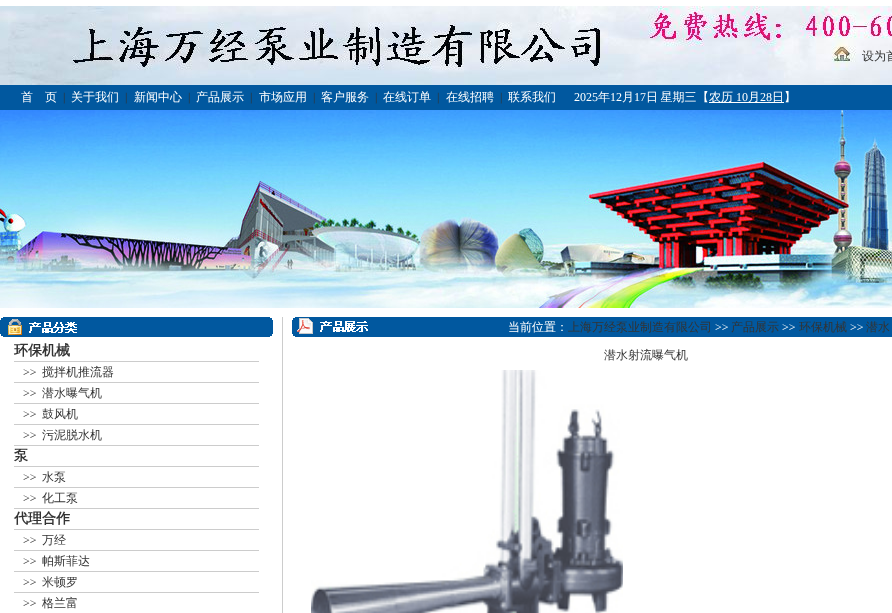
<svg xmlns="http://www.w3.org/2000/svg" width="892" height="613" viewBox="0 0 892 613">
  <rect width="100%" height="100%" fill="#ffffff"/>
  <image x="0" y="6" width="892" height="79" href="img1.png"/>
  <text x="862" y="60" font-family="WenQuanYi Zen Hei" font-size="12" font-weight="500" fill="#333333">设为首</text>
  <rect x="0" y="85" width="892" height="25" fill="#01589f"/>
  <text x="21" y="101" font-family="WenQuanYi Zen Hei" font-size="12" font-weight="500" fill="#ffffff">首</text>
  <text x="45" y="101" font-family="WenQuanYi Zen Hei" font-size="12" font-weight="500" fill="#ffffff">页</text>
  <text x="63" y="101" font-family="Liberation Serif" font-size="12" fill="#333333">|</text>
  <text x="71" y="101" font-family="WenQuanYi Zen Hei" font-size="12" font-weight="500" fill="#ffffff">关于我们</text>
  <text x="125" y="101" font-family="Liberation Serif" font-size="12" fill="#333333">|</text>
  <text x="134" y="101" font-family="WenQuanYi Zen Hei" font-size="12" font-weight="500" fill="#ffffff">新闻中心</text>
  <text x="188" y="101" font-family="Liberation Serif" font-size="12" fill="#333333">|</text>
  <text x="196" y="101" font-family="WenQuanYi Zen Hei" font-size="12" font-weight="500" fill="#ffffff">产品展示</text>
  <text x="250" y="101" font-family="Liberation Serif" font-size="12" fill="#333333">|</text>
  <text x="259" y="101" font-family="WenQuanYi Zen Hei" font-size="12" font-weight="500" fill="#ffffff">市场应用</text>
  <text x="313" y="101" font-family="Liberation Serif" font-size="12" fill="#333333">|</text>
  <text x="321" y="101" font-family="WenQuanYi Zen Hei" font-size="12" font-weight="500" fill="#ffffff">客户服务</text>
  <text x="375" y="101" font-family="Liberation Serif" font-size="12" fill="#333333">|</text>
  <text x="383" y="101" font-family="WenQuanYi Zen Hei" font-size="12" font-weight="500" fill="#ffffff">在线订单</text>
  <text x="437" y="101" font-family="Liberation Serif" font-size="12" fill="#333333">|</text>
  <text x="446" y="101" font-family="WenQuanYi Zen Hei" font-size="12" font-weight="500" fill="#ffffff">在线招聘</text>
  <text x="500" y="101" font-family="Liberation Serif" font-size="12" fill="#333333">|</text>
  <text x="508" y="101" font-family="WenQuanYi Zen Hei" font-size="12" font-weight="500" fill="#ffffff">联系我们</text>
  <text x="574" y="101" font-family="Liberation Serif" font-size="12" fill="#ffffff">2025</text>
  <text x="598" y="101" font-family="WenQuanYi Zen Hei" font-size="12" font-weight="500" fill="#ffffff">年</text>
  <text x="610" y="101" font-family="Liberation Serif" font-size="12" fill="#ffffff">12</text>
  <text x="622" y="101" font-family="WenQuanYi Zen Hei" font-size="12" font-weight="500" fill="#ffffff">月</text>
  <text x="634" y="101" font-family="Liberation Serif" font-size="12" fill="#ffffff">17</text>
  <text x="646" y="101" word-spacing="-1" font-family="WenQuanYi Zen Hei" font-size="12" font-weight="500" fill="#ffffff">日 星期三</text>
  <text x="697" y="101" font-family="WenQuanYi Zen Hei" font-size="12" font-weight="500" fill="#ffffff">【</text>
  <rect x="709" y="102" width="75" height="1" fill="#ffffff"/>
  <text x="709" y="101" font-family="WenQuanYi Zen Hei" font-size="12" font-weight="500" fill="#ffffff">农历</text>
  <text x="736" y="101" font-family="Liberation Serif" font-size="12" fill="#ffffff">10</text>
  <text x="748" y="101" font-family="WenQuanYi Zen Hei" font-size="12" font-weight="500" fill="#ffffff">月</text>
  <text x="760" y="101" font-family="Liberation Serif" font-size="12" fill="#ffffff">28</text>
  <text x="772" y="101" font-family="WenQuanYi Zen Hei" font-size="12" font-weight="500" fill="#ffffff">日】</text>
  <image x="0" y="110" width="892" height="198" href="img2.png"/>
  <image x="0" y="317" width="273" height="20" href="img3.png"/>
  <rect x="14" y="361" width="245" height="1" fill="#cccccc"/>
  <text x="14" y="355" font-family="WenQuanYi Zen Hei" font-size="14" font-weight="bold" fill="#333333">环保机械</text>
  <rect x="14" y="382" width="245" height="1" fill="#cccccc"/>
  <text x="23" y="376" font-family="Liberation Serif" font-size="12" fill="#333333">&gt;&gt;</text>
  <text x="42" y="376" font-family="WenQuanYi Zen Hei" font-size="12" font-weight="500" fill="#333333">搅拌机推流器</text>
  <rect x="14" y="403" width="245" height="1" fill="#cccccc"/>
  <text x="23" y="397" font-family="Liberation Serif" font-size="12" fill="#333333">&gt;&gt;</text>
  <text x="42" y="397" font-family="WenQuanYi Zen Hei" font-size="12" font-weight="500" fill="#333333">潜水曝气机</text>
  <rect x="14" y="424" width="245" height="1" fill="#cccccc"/>
  <text x="23" y="418" font-family="Liberation Serif" font-size="12" fill="#333333">&gt;&gt;</text>
  <text x="42" y="418" font-family="WenQuanYi Zen Hei" font-size="12" font-weight="500" fill="#333333">鼓风机</text>
  <rect x="14" y="445" width="245" height="1" fill="#cccccc"/>
  <text x="23" y="439" font-family="Liberation Serif" font-size="12" fill="#333333">&gt;&gt;</text>
  <text x="42" y="439" font-family="WenQuanYi Zen Hei" font-size="12" font-weight="500" fill="#333333">污泥脱水机</text>
  <rect x="14" y="466" width="245" height="1" fill="#cccccc"/>
  <text x="14" y="460" font-family="WenQuanYi Zen Hei" font-size="14" font-weight="bold" fill="#333333">泵</text>
  <rect x="14" y="487" width="245" height="1" fill="#cccccc"/>
  <text x="23" y="481" font-family="Liberation Serif" font-size="12" fill="#333333">&gt;&gt;</text>
  <text x="42" y="481" font-family="WenQuanYi Zen Hei" font-size="12" font-weight="500" fill="#333333">水泵</text>
  <rect x="14" y="508" width="245" height="1" fill="#cccccc"/>
  <text x="23" y="502" font-family="Liberation Serif" font-size="12" fill="#333333">&gt;&gt;</text>
  <text x="42" y="502" font-family="WenQuanYi Zen Hei" font-size="12" font-weight="500" fill="#333333">化工泵</text>
  <rect x="14" y="529" width="245" height="1" fill="#cccccc"/>
  <text x="14" y="523" font-family="WenQuanYi Zen Hei" font-size="14" font-weight="bold" fill="#333333">代理合作</text>
  <rect x="14" y="550" width="245" height="1" fill="#cccccc"/>
  <text x="23" y="544" font-family="Liberation Serif" font-size="12" fill="#333333">&gt;&gt;</text>
  <text x="42" y="544" font-family="WenQuanYi Zen Hei" font-size="12" font-weight="500" fill="#333333">万经</text>
  <rect x="14" y="571" width="245" height="1" fill="#cccccc"/>
  <text x="23" y="565" font-family="Liberation Serif" font-size="12" fill="#333333">&gt;&gt;</text>
  <text x="42" y="565" font-family="WenQuanYi Zen Hei" font-size="12" font-weight="500" fill="#333333">帕斯菲达</text>
  <rect x="14" y="592" width="245" height="1" fill="#cccccc"/>
  <text x="23" y="586" font-family="Liberation Serif" font-size="12" fill="#333333">&gt;&gt;</text>
  <text x="42" y="586" font-family="WenQuanYi Zen Hei" font-size="12" font-weight="500" fill="#333333">米顿罗</text>
  <text x="23" y="607" font-family="Liberation Serif" font-size="12" fill="#333333">&gt;&gt;</text>
  <text x="42" y="607" font-family="WenQuanYi Zen Hei" font-size="12" font-weight="500" fill="#333333">格兰富</text>
  <rect x="282" y="317" width="1" height="296" fill="#cccccc"/>
  <image x="292" y="317" width="600" height="20" href="img4.png"/>
  <text x="508" y="331" font-family="WenQuanYi Zen Hei" font-size="12" font-weight="500" fill="#ffffff">当前位置：</text>
  <text x="568" y="331" font-family="WenQuanYi Zen Hei" font-size="12" font-weight="500" fill="#333333">上海万经泵业制造有限公司</text>
  <text x="715" y="331" font-family="Liberation Serif" font-size="12" fill="#ffffff">&gt;&gt;</text>
  <text x="731" y="331" font-family="WenQuanYi Zen Hei" font-size="12" font-weight="500" fill="#333333">产品展示</text>
  <text x="782" y="331" font-family="Liberation Serif" font-size="12" fill="#ffffff">&gt;&gt;</text>
  <text x="799" y="331" font-family="WenQuanYi Zen Hei" font-size="12" font-weight="500" fill="#333333">环保机械</text>
  <text x="850" y="331" font-family="Liberation Serif" font-size="12" fill="#ffffff">&gt;&gt;</text>
  <text x="866" y="331" font-family="WenQuanYi Zen Hei" font-size="12" font-weight="500" fill="#333333">潜水</text>
  <text x="604" y="359" font-family="WenQuanYi Zen Hei" font-size="12" font-weight="500" fill="#333333">潜水射流曝气机</text>
  <image x="311" y="370" width="312" height="243" href="img5.png"/>
</svg>
